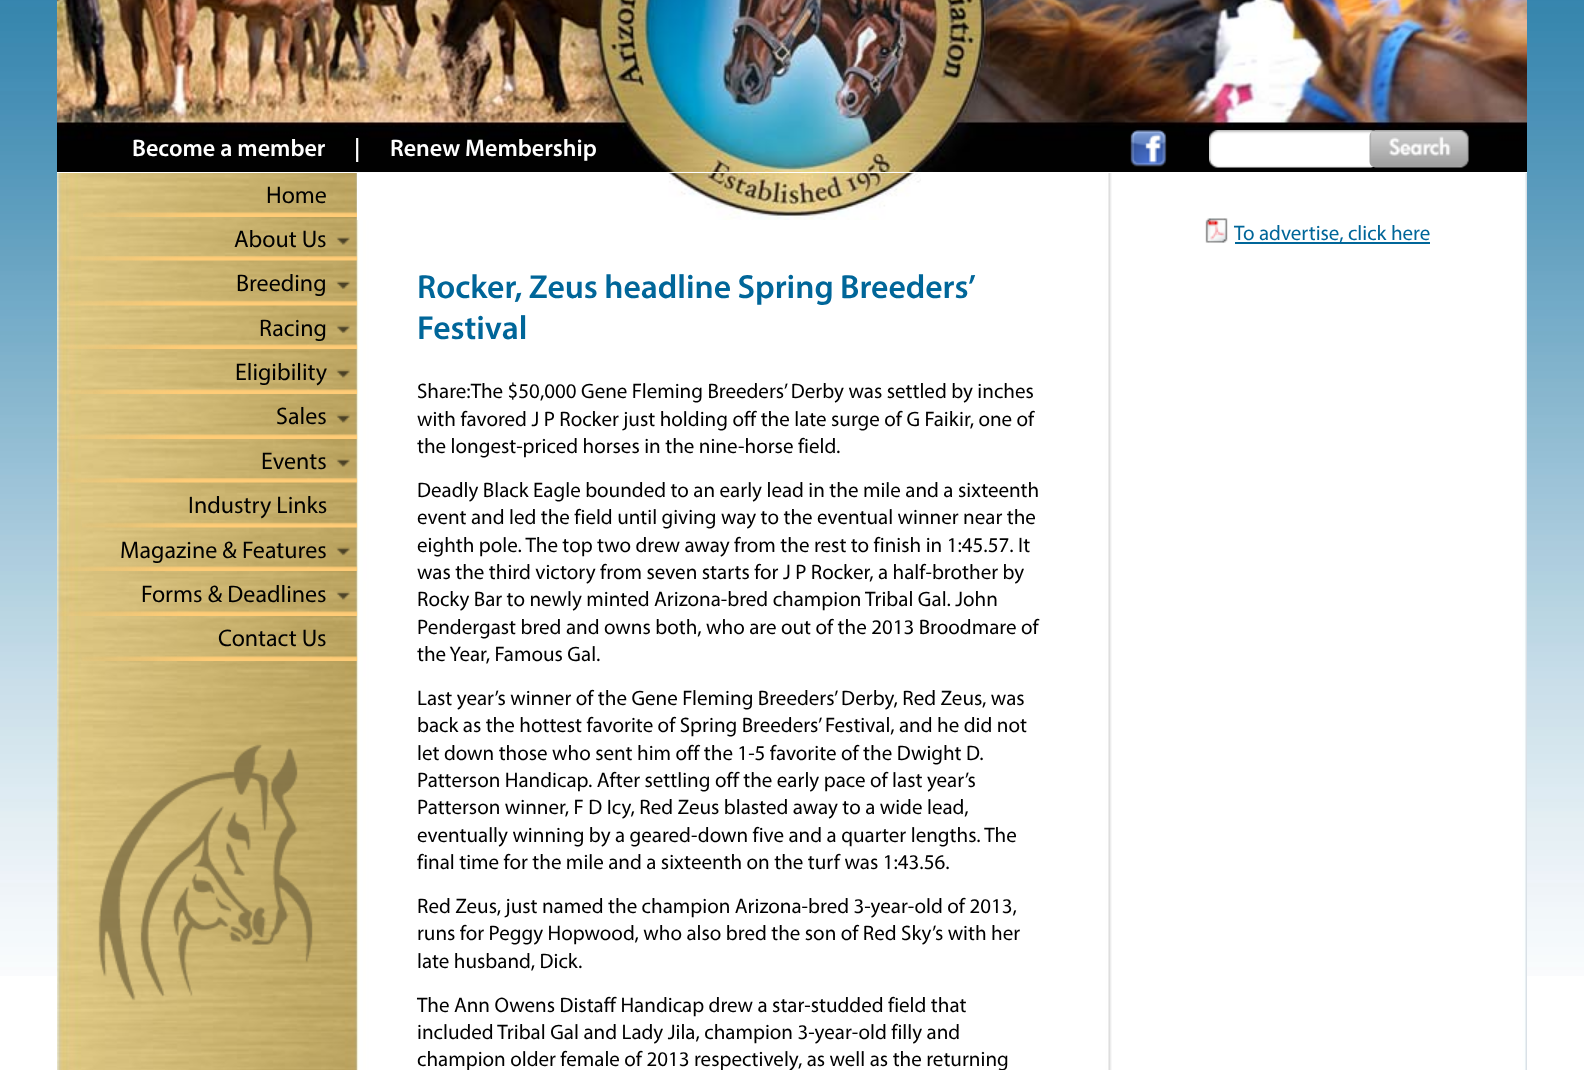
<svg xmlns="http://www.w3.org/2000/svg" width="1584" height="1070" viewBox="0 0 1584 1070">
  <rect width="100%" height="100%" fill="#ffffff"/>
  <image x="0" y="0" width="1584" height="976" href="img1.png"/>
  <rect x="57" y="172" width="1470" height="1" fill="#ffffff"/>
  <image x="57" y="0" width="1470" height="172" href="img2.png"/>
  <text x="132" y="156" font-family="Myriad" font-size="24" font-weight="600" fill="#ffffff">Become a member</text>
  <text x="354" y="156" font-family="Myriad" font-size="24" font-weight="600" fill="#ffffff">|</text>
  <text x="390" y="156" font-family="Myriad" font-size="24" font-weight="600" fill="#ffffff">Renew Membership</text>
  <image x="1130" y="130" width="37" height="37" href="img3.png"/>
  <image x="1209" y="130" width="167" height="38" href="img4.png"/>
  <image x="1369" y="130" width="100" height="38" href="img5.png"/>
  <image x="57" y="173" width="1470" height="897" href="img6.png"/>
  <image x="83" y="212" width="274" height="5" href="img7.png"/>
  <text x="266" y="203" font-family="Myriad" font-size="24" fill="#000000">Home</text>
  <image x="57" y="237" width="300" height="24" href="img8.png"/>
  <text x="234" y="247" font-family="Myriad" font-size="24" fill="#000000">About Us</text>
  <image x="57" y="281" width="300" height="25" href="img9.png"/>
  <text x="236" y="291" font-family="Myriad" font-size="24" fill="#000000">Breeding</text>
  <image x="57" y="325" width="300" height="24" href="img10.png"/>
  <text x="259" y="336" font-family="Myriad" font-size="24" fill="#000000">Racing</text>
  <image x="57" y="369" width="300" height="25" href="img11.png"/>
  <text x="235" y="380" font-family="Myriad" font-size="24" fill="#000000">Eligibility</text>
  <image x="57" y="414" width="300" height="25" href="img12.png"/>
  <text x="276" y="424" font-family="Myriad" font-size="24" fill="#000000">Sales</text>
  <image x="57" y="459" width="300" height="24" href="img13.png"/>
  <text x="261" y="469" font-family="Myriad" font-size="24" fill="#000000">Events</text>
  <image x="82" y="522" width="275" height="6" href="img14.png"/>
  <text x="188" y="513" font-family="Myriad" font-size="24" fill="#000000">Industry Links</text>
  <image x="57" y="547" width="300" height="24" href="img15.png"/>
  <text x="120" y="558" font-family="Myriad" font-size="24" fill="#000000">Magazine &amp; Features</text>
  <image x="57" y="591" width="300" height="25" href="img16.png"/>
  <text x="141" y="602" font-family="Myriad" font-size="24" fill="#000000">Forms &amp; Deadlines</text>
  <image x="82" y="656" width="275" height="5" href="img17.png"/>
  <text x="218" y="646" font-family="Myriad" font-size="24" fill="#000000">Contact Us</text>
  <image x="98" y="744" width="215" height="257" href="img18.png"/>
  <image x="1205" y="218" width="23" height="25" href="img19.png"/>
  <rect x="1235" y="242" width="195" height="2" fill="#006699"/>
  <text x="1234" y="240" font-family="Myriad" font-size="21" fill="#006699">To advertise, click here</text>
  <image x="357" y="173" width="564" height="47" href="img20.png"/>
  <text x="417" y="298" word-spacing="-0.5" font-family="Myriad" font-size="33.6" font-weight="600" fill="#006699">Rocker, Zeus headline Spring Breeders’</text>
  <text x="417" y="339" font-family="Myriad" font-size="33.6" font-weight="600" fill="#006699">Festival</text>
  <text x="417" y="398" font-family="Myriad" font-size="21" fill="#000000">Share:The $50,000 Gene Fleming Breeders’ Derby was settled by inches</text>
  <text x="417" y="426" font-family="Myriad" font-size="21" fill="#000000">with favored J P Rocker just holding off the late surge of G Faikir, one of</text>
  <text x="417" y="453" font-family="Myriad" font-size="21" fill="#000000">the longest-priced horses in the nine-horse field.</text>
  <text x="417" y="497" font-family="Myriad" font-size="21" fill="#000000">Deadly Black Eagle bounded to an early lead in the mile and a sixteenth</text>
  <text x="417" y="524" font-family="Myriad" font-size="21" fill="#000000">event and led the field until giving way to the eventual winner near the</text>
  <text x="417" y="552" font-family="Myriad" font-size="21" fill="#000000">eighth pole. The top two drew away from the rest to finish in 1:45.57. It</text>
  <text x="417" y="579" font-family="Myriad" font-size="21" fill="#000000">was the third victory from seven starts for J P Rocker, a half-brother by</text>
  <text x="417" y="606" font-family="Myriad" font-size="21" fill="#000000">Rocky Bar to newly minted Arizona-bred champion Tribal Gal. John</text>
  <text x="417" y="634" font-family="Myriad" font-size="21" fill="#000000">Pendergast bred and owns both, who are out of the 2013 Broodmare of</text>
  <text x="417" y="661" font-family="Myriad" font-size="21" fill="#000000">the Year, Famous Gal.</text>
  <text x="417" y="705" font-family="Myriad" font-size="21" fill="#000000">Last year’s winner of the Gene Fleming Breeders’ Derby, Red Zeus, was</text>
  <text x="417" y="732" font-family="Myriad" font-size="21" fill="#000000">back as the hottest favorite of Spring Breeders’ Festival, and he did not</text>
  <text x="417" y="760" font-family="Myriad" font-size="21" fill="#000000">let down those who sent him off the 1-5 favorite of the Dwight D.</text>
  <text x="417" y="787" font-family="Myriad" font-size="21" fill="#000000">Patterson Handicap. After settling off the early pace of last year’s</text>
  <text x="417" y="814" font-family="Myriad" font-size="21" fill="#000000">Patterson winner, F D Icy, Red Zeus blasted away to a wide lead,</text>
  <text x="417" y="842" font-family="Myriad" font-size="21" fill="#000000">eventually winning by a geared-down five and a quarter lengths. The</text>
  <text x="417" y="869" font-family="Myriad" font-size="21" fill="#000000">final time for the mile and a sixteenth on the turf was 1:43.56.</text>
  <text x="417" y="913" font-family="Myriad" font-size="21" fill="#000000">Red Zeus, just named the champion Arizona-bred 3-year-old of 2013,</text>
  <text x="417" y="940" font-family="Myriad" font-size="21" fill="#000000">runs for Peggy Hopwood, who also bred the son of Red Sky’s with her</text>
  <text x="417" y="968" font-family="Myriad" font-size="21" fill="#000000">late husband, Dick.</text>
  <text x="417" y="1012" font-family="Myriad" font-size="21" fill="#000000">The Ann Owens Distaff Handicap drew a star-studded field that</text>
  <text x="417" y="1039" font-family="Myriad" font-size="21" fill="#000000">included Tribal Gal and Lady Jila, champion 3-year-old filly and</text>
  <text x="417" y="1066" font-family="Myriad" font-size="21" fill="#000000">champion older female of 2013 respectively, as well as the returning</text>
</svg>
